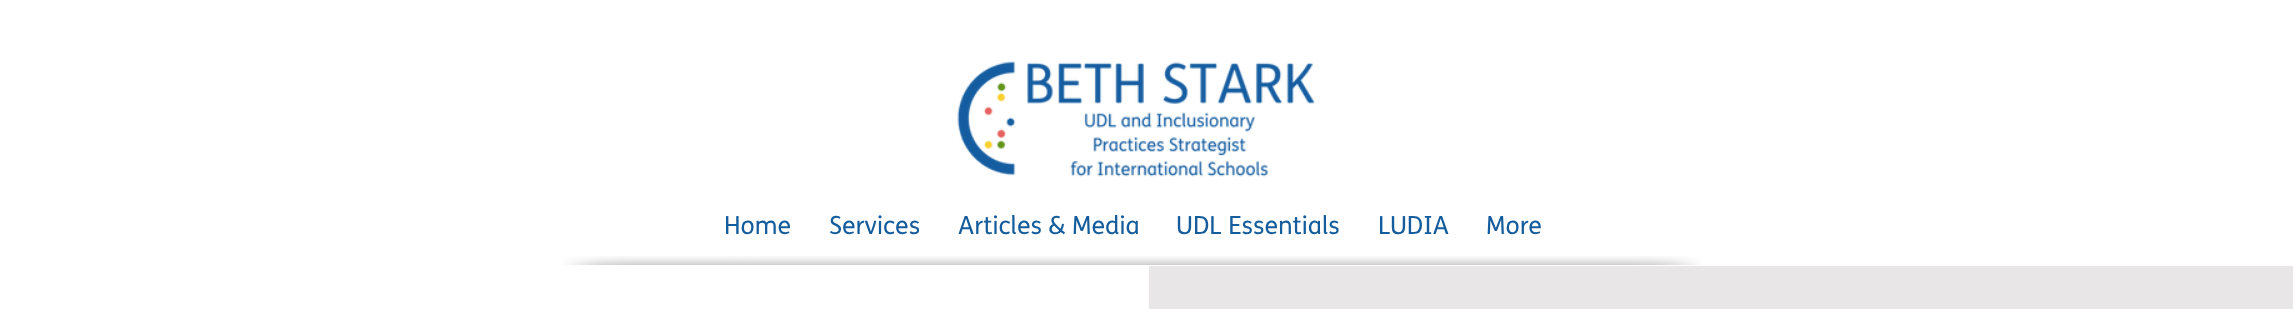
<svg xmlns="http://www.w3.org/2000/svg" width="2293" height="309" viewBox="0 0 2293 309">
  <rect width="100%" height="100%" fill="#ffffff"/>
  <image x="957" y="61" width="358" height="116" href="img1.png"/>
  <text x="724" y="234" font-family="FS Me" font-size="25" fill="#145c9c">Home</text>
  <text x="829" y="234" font-family="FS Me" font-size="25" fill="#145c9c">Services</text>
  <text x="958" y="234" font-family="FS Me" font-size="25" fill="#145c9c">Articles &amp; Media</text>
  <text x="1176" y="234" font-family="FS Me" font-size="25" fill="#145c9c">UDL Essentials</text>
  <text x="1378" y="234" font-family="FS Me" font-size="25" fill="#145c9c">LUDIA</text>
  <text x="1486" y="234" font-family="FS Me" font-size="25" fill="#145c9c">More</text>
  <image x="564" y="256" width="116" height="9" href="img2.png"/>
  <image x="680" y="256" width="905" height="9" href="img3.png"/>
  <image x="1585" y="256" width="116" height="9" href="img4.png"/>
  <rect x="1149" y="266" width="1144" height="43" fill="#e8e6e6"/>
</svg>
